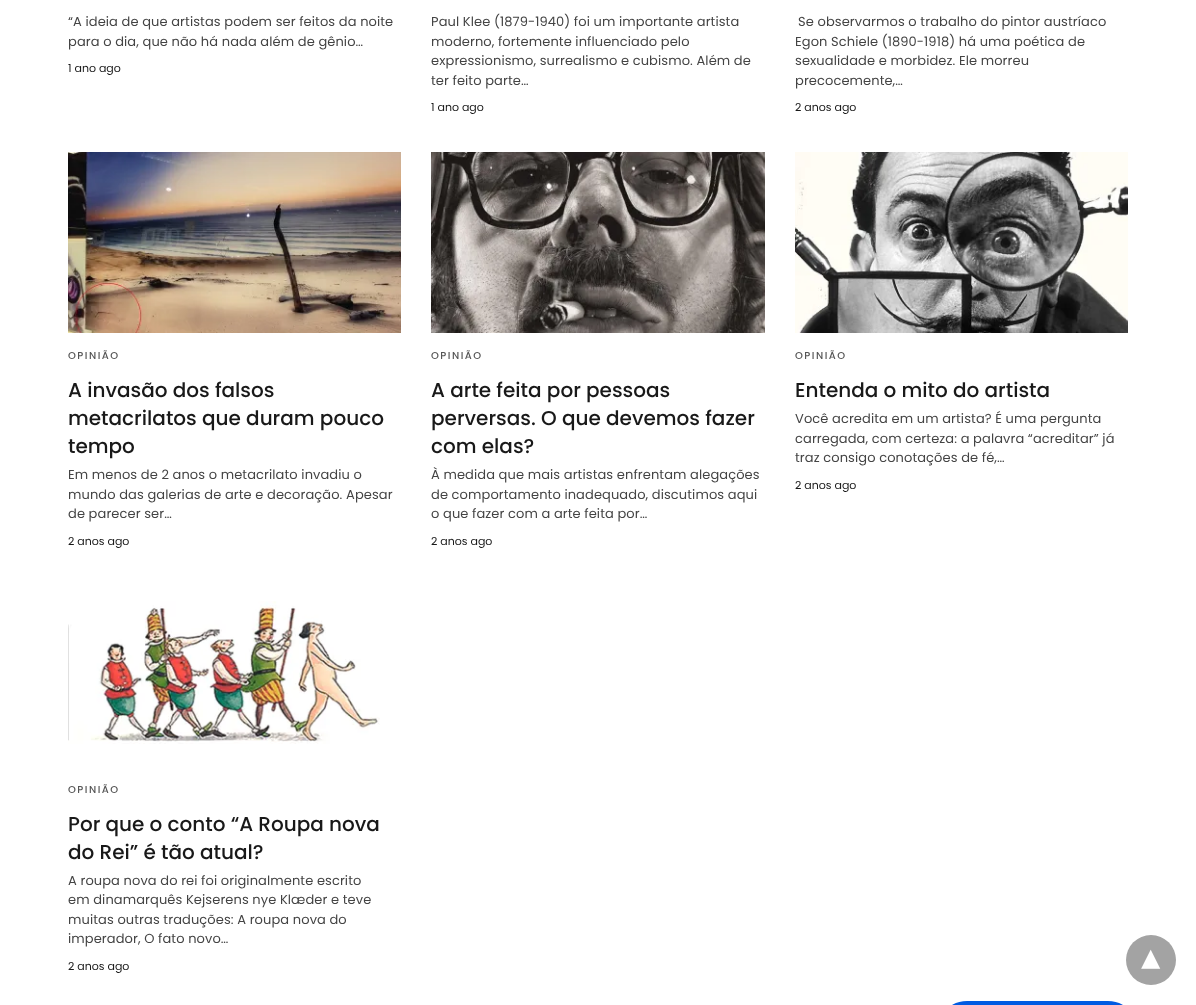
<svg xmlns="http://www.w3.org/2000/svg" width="1196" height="1005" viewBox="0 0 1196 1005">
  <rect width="100%" height="100%" fill="#ffffff"/>
  <text x="68" y="26" font-family="Poppins" font-size="13" letter-spacing="0.1" fill="#444444">“A ideia de que artistas podem ser feitos da noite</text>
  <text x="68" y="46" font-family="Poppins" font-size="13" letter-spacing="0.1" fill="#444444">para o dia, que não há nada além de gênio…</text>
  <text x="68" y="72" font-family="Poppins" font-size="11" fill="#191919">1 ano ago</text>
  <text x="431" y="26" font-family="Poppins" font-size="13" letter-spacing="0.1" fill="#444444">Paul Klee (1879-1940) foi um importante artista</text>
  <text x="431" y="46" font-family="Poppins" font-size="13" letter-spacing="0.1" fill="#444444">moderno, fortemente influenciado pelo</text>
  <text x="431" y="65" font-family="Poppins" font-size="13" letter-spacing="0.1" fill="#444444">expressionismo, surrealismo e cubismo. Além de</text>
  <text x="431" y="85" font-family="Poppins" font-size="13" letter-spacing="0.1" fill="#444444">ter feito parte…</text>
  <text x="431" y="111" font-family="Poppins" font-size="11" fill="#191919">1 ano ago</text>
  <text x="798" y="26" font-family="Poppins" font-size="13" letter-spacing="0.1" fill="#444444">Se observarmos o trabalho do pintor austríaco</text>
  <text x="795" y="46" font-family="Poppins" font-size="13" letter-spacing="0.1" fill="#444444">Egon Schiele (1890-1918) há uma poética de</text>
  <text x="795" y="65" font-family="Poppins" font-size="13" letter-spacing="0.1" fill="#444444">sexualidade e morbidez. Ele morreu</text>
  <text x="795" y="85" font-family="Poppins" font-size="13" letter-spacing="0.1" fill="#444444">precocemente,…</text>
  <text x="795" y="111" font-family="Poppins" font-size="11" fill="#191919">2 anos ago</text>
  <image x="68" y="152" width="333" height="181" href="img1.png"/>
  <text x="68" y="359" font-family="Poppins" font-size="10" font-weight="500" letter-spacing="1.5" fill="#555555">OPINIÃO</text>
  <text x="68" y="397" font-family="Poppins" font-size="20" font-weight="500" fill="#191919">A invasão dos falsos</text>
  <text x="68" y="425" font-family="Poppins" font-size="20" font-weight="500" fill="#191919">metacrilatos que duram pouco</text>
  <text x="68" y="453" font-family="Poppins" font-size="20" font-weight="500" fill="#191919">tempo</text>
  <text x="68" y="479" font-family="Poppins" font-size="13" letter-spacing="0.1" fill="#444444">Em menos de 2 anos o metacrilato invadiu o</text>
  <text x="68" y="499" font-family="Poppins" font-size="13" letter-spacing="0.1" fill="#444444">mundo das galerias de arte e decoração. Apesar</text>
  <text x="68" y="518" font-family="Poppins" font-size="13" letter-spacing="0.1" fill="#444444">de parecer ser…</text>
  <text x="68" y="545" font-family="Poppins" font-size="11" fill="#191919">2 anos ago</text>
  <image x="431" y="152" width="334" height="181" href="img2.png"/>
  <text x="431" y="359" font-family="Poppins" font-size="10" font-weight="500" letter-spacing="1.5" fill="#555555">OPINIÃO</text>
  <text x="431" y="397" font-family="Poppins" font-size="20" font-weight="500" fill="#191919">A arte feita por pessoas</text>
  <text x="431" y="425" font-family="Poppins" font-size="20" font-weight="500" fill="#191919">perversas. O que devemos fazer</text>
  <text x="431" y="453" font-family="Poppins" font-size="20" font-weight="500" fill="#191919">com elas?</text>
  <text x="431" y="479" font-family="Poppins" font-size="13" letter-spacing="0.1" fill="#444444">À medida que mais artistas enfrentam alegações</text>
  <text x="431" y="499" font-family="Poppins" font-size="13" letter-spacing="0.1" fill="#444444">de comportamento inadequado, discutimos aqui</text>
  <text x="431" y="518" font-family="Poppins" font-size="13" letter-spacing="0.1" fill="#444444">o que fazer com a arte feita por…</text>
  <text x="431" y="545" font-family="Poppins" font-size="11" fill="#191919">2 anos ago</text>
  <image x="795" y="152" width="333" height="181" href="img3.png"/>
  <text x="795" y="359" font-family="Poppins" font-size="10" font-weight="500" letter-spacing="1.5" fill="#555555">OPINIÃO</text>
  <text x="795" y="397" font-family="Poppins" font-size="20" font-weight="500" fill="#191919">Entenda o mito do artista</text>
  <text x="795" y="423" font-family="Poppins" font-size="13" letter-spacing="0.1" fill="#444444">Você acredita em um artista? É uma pergunta</text>
  <text x="795" y="443" font-family="Poppins" font-size="13" letter-spacing="0.1" fill="#444444">carregada, com certeza: a palavra “acreditar” já</text>
  <text x="795" y="462" font-family="Poppins" font-size="13" letter-spacing="0.1" fill="#444444">traz consigo conotações de fé,…</text>
  <text x="795" y="489" font-family="Poppins" font-size="11" fill="#191919">2 anos ago</text>
  <image x="68" y="601" width="312" height="143" href="img4.png"/>
  <text x="68" y="793" font-family="Poppins" font-size="10" font-weight="500" letter-spacing="1.5" fill="#555555">OPINIÃO</text>
  <text x="68" y="831" font-family="Poppins" font-size="20" font-weight="500" fill="#191919">Por que o conto “A Roupa nova</text>
  <text x="68" y="859" font-family="Poppins" font-size="20" font-weight="500" fill="#191919">do Rei” é tão atual?</text>
  <text x="68" y="885" font-family="Poppins" font-size="13" letter-spacing="0.1" fill="#444444">A roupa nova do rei foi originalmente escrito</text>
  <text x="68" y="904" font-family="Poppins" font-size="13" letter-spacing="0.1" fill="#444444">em dinamarquês Kejserens nye Klæder e teve</text>
  <text x="68" y="924" font-family="Poppins" font-size="13" letter-spacing="0.1" fill="#444444">muitas outras traduções: A roupa nova do</text>
  <text x="68" y="943" font-family="Poppins" font-size="13" letter-spacing="0.1" fill="#444444">imperador, O fato novo…</text>
  <text x="68" y="970" font-family="Poppins" font-size="11" fill="#191919">2 anos ago</text>
  <rect x="947" y="1001" width="181" height="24" rx="20" fill="#005be2"/>
  <circle cx="1151" cy="960" r="25" fill="#a3a3a3"/>
  <text x="1160" y="950" transform="rotate(180 1160 950)" font-family="DejaVu Sans" font-size="35" font-weight="bold" fill="#ffffff">▾</text>
</svg>
